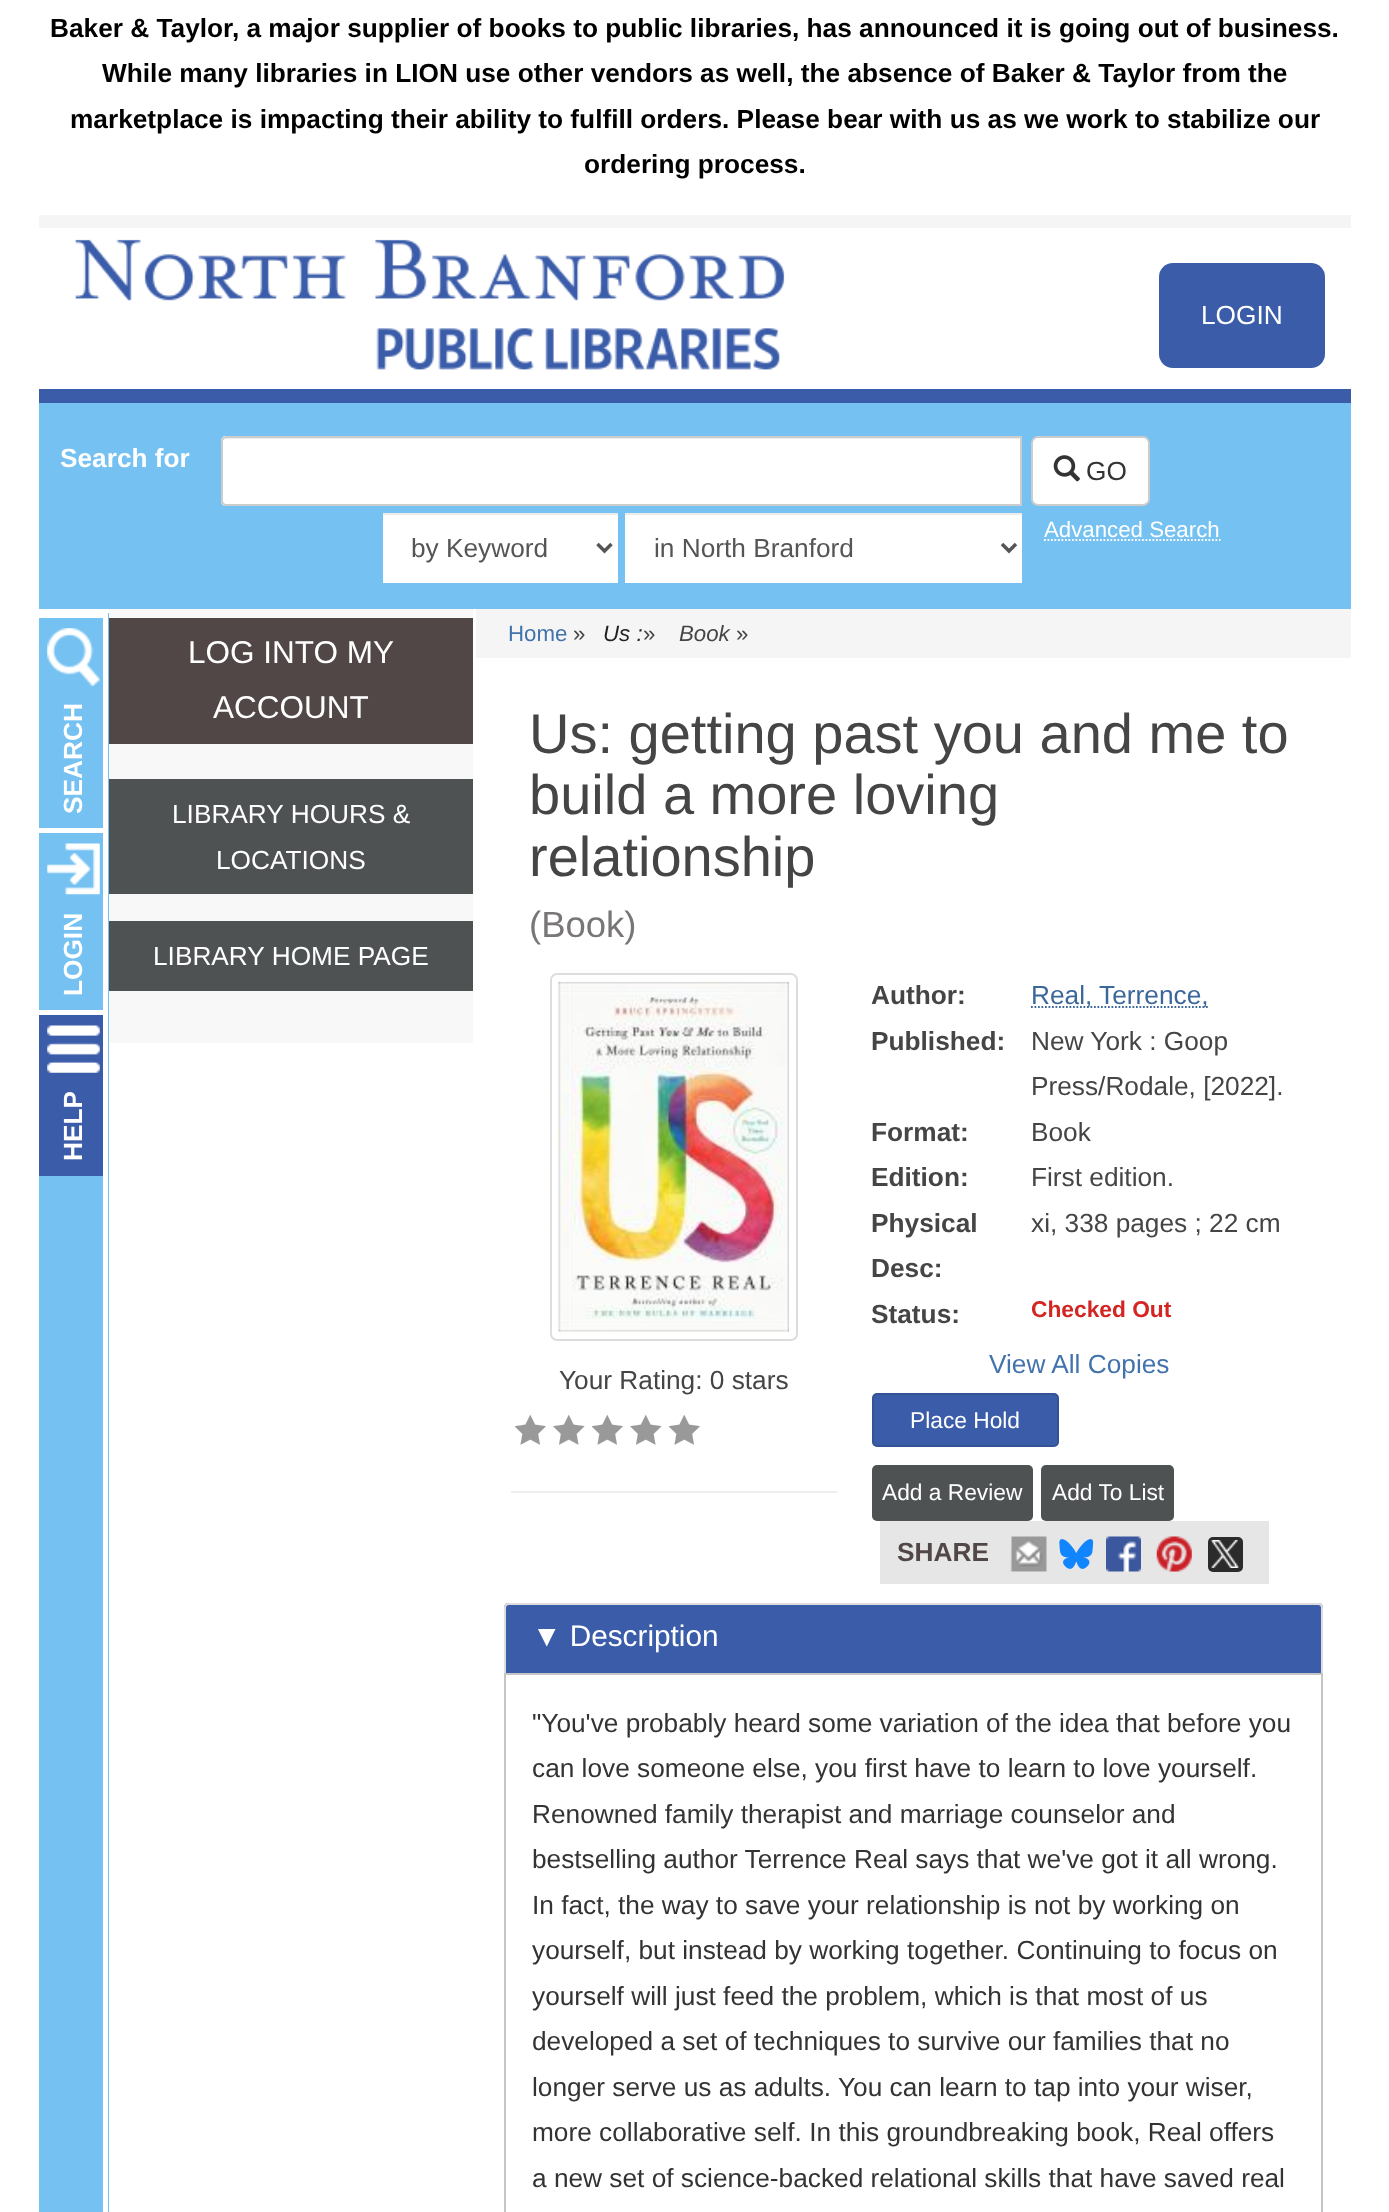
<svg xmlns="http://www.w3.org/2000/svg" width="1389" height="2212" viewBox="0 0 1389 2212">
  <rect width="100%" height="100%" fill="#ffffff"/>
  <text x="50" y="37" font-family="Liberation Sans" font-size="26.25" font-weight="bold" fill="#000000">Baker &amp; Taylor, a major supplier of books to public libraries, has announced it is going out of business.</text>
  <text x="102" y="82" font-family="Liberation Sans" font-size="26.25" font-weight="bold" fill="#000000">While many libraries in LION use other vendors as well, the absence of Baker &amp; Taylor from the</text>
  <text x="70" y="128" font-family="Liberation Sans" font-size="26.25" font-weight="bold" fill="#000000">marketplace is impacting their ability to fulfill orders. Please bear with us as we work to stabilize our</text>
  <text x="584" y="173" font-family="Liberation Sans" font-size="26.25" font-weight="bold" fill="#000000">ordering process.</text>
  <rect x="39" y="215" width="1312" height="13" fill="#f5f5f5"/>
  <rect x="39" y="389" width="1312" height="14" fill="#3b5ca9"/>
  <image x="75" y="239" width="710" height="131" href="img1.png"/>
  <rect x="1159" y="263" width="166" height="105" rx="14" fill="#3b5ca9"/>
  <text x="1201" y="324" font-family="Liberation Sans" font-size="26.25" fill="#ffffff">LOGIN</text>
  <rect x="39" y="403" width="1312" height="206" fill="#74c1f2"/>
  <text x="60" y="467" font-family="Liberation Sans" font-size="26.25" font-weight="bold" fill="#ffffff">Search for</text>
  <path d="M226 436H1022V506H226C223 506 221 504 221 501V441C221 438 223 436 226 436Z" fill="#ffffff"/>
  <path d="M226 439H1020V438H226C223 438 222 440 222 443C222 441 224 439 226 439Z" fill="#ececec"/>
  <path d="M226 437H1021V505H226C224 505 222 503 222 501V441C222 439 224 437 226 437Z" fill="none" stroke="#cccccc" stroke-width="2"/>
  <rect x="383" y="515" width="235" height="68" fill="#ffffff"/>
  <rect x="383" y="513" width="235" height="2" fill="#ececec"/>
  <path d="M597.5 544L604.5 551L611.5 544" fill="none" stroke="#555555" stroke-width="3.5"/>
  <text x="411" y="557" font-family="Liberation Sans" font-size="26.25" fill="#555555">by Keyword</text>
  <rect x="625" y="515" width="397" height="68" fill="#ffffff"/>
  <rect x="625" y="513" width="397" height="2" fill="#ececec"/>
  <path d="M1002 544L1009 551L1016 544" fill="none" stroke="#555555" stroke-width="3.5"/>
  <text x="654" y="557" font-family="Liberation Sans" font-size="26.25" fill="#555555">in North Branford</text>
  <rect x="1032" y="437" width="117" height="68" rx="6" fill="#ffffff" stroke="#cccccc" stroke-width="2"/>
  <image x="1053" y="455" width="27" height="27" href="img2.png"/>
  <text x="1086" y="480" font-family="Liberation Sans" font-size="26.25" fill="#333333">GO</text>
  <text x="1044" y="537" font-family="Liberation Sans" font-size="22.25" fill="#ffffff">Advanced Search</text>
  <path d="M1044 540H1220.5" fill="none" stroke="#ffffff" stroke-width="1.8" stroke-dasharray="1.75 1.75"/>
  <rect x="39" y="613" width="70" height="1599" fill="#74c1f2"/>
  <rect x="103" y="613" width="5" height="1599" fill="#ffffff"/>
  <rect x="39" y="613" width="64" height="5" fill="#ffffff"/>
  <image x="47" y="628" width="53" height="58" href="img3.png"/>
  <text x="82" y="814" transform="rotate(-90 82 814)" font-family="Liberation Sans" font-size="26.25" font-weight="bold" fill="#ffffff">SEARCH</text>
  <rect x="39" y="828" width="64" height="5" fill="#ffffff"/>
  <image x="47" y="843" width="53" height="52" href="img4.png"/>
  <text x="82" y="996" transform="rotate(-90 82 996)" font-family="Liberation Sans" font-size="26.25" font-weight="bold" fill="#ffffff">LOGIN</text>
  <rect x="39" y="1015" width="64" height="161" fill="#3b5ca9"/>
  <rect x="39" y="1010" width="64" height="5" fill="#ffffff"/>
  <image x="47" y="1025" width="53" height="48" href="img5.png"/>
  <text x="82" y="1161" transform="rotate(-90 82 1161)" font-family="Liberation Sans" font-size="26.25" font-weight="bold" fill="#ffffff">HELP</text>
  <rect x="109" y="609" width="364" height="434" fill="#f8f8f8"/>
  <rect x="109" y="618" width="364" height="126" fill="#524747"/>
  <text x="188" y="663" font-family="Liberation Sans" font-size="31.5" fill="#ffffff">LOG INTO MY</text>
  <text x="213" y="718" font-family="Liberation Sans" font-size="31.5" fill="#ffffff">ACCOUNT</text>
  <rect x="109" y="779" width="364" height="115" fill="#4f5253"/>
  <text x="172" y="823" font-family="Liberation Sans" font-size="26.25" fill="#ffffff">LIBRARY HOURS &amp;</text>
  <text x="216" y="869" font-family="Liberation Sans" font-size="26.25" fill="#ffffff">LOCATIONS</text>
  <rect x="109" y="921" width="364" height="70" fill="#4f5253"/>
  <text x="153" y="965" font-family="Liberation Sans" font-size="26.25" fill="#ffffff">LIBRARY HOME PAGE</text>
  <rect x="476" y="609" width="875" height="49" fill="#f5f5f5"/>
  <text x="508" y="641" font-family="Liberation Sans" font-size="22.25" fill="#4273ac">Home</text>
  <text x="573" y="641" font-family="Liberation Sans" font-size="22.25" fill="#454545">»</text>
  <text x="603" y="641" font-family="Liberation Sans" font-size="22.25" font-style="italic" fill="#222222">Us :</text>
  <text x="643" y="641" font-family="Liberation Sans" font-size="22.25" fill="#454545">»</text>
  <text x="679" y="641" font-family="Liberation Sans" font-size="22.25" font-style="italic" fill="#454545">Book</text>
  <text x="736" y="641" font-family="Liberation Sans" font-size="22.25" fill="#454545">»</text>
  <text x="529" y="753" font-family="Liberation Sans" font-size="56" fill="#454545">Us: getting past you and me to</text>
  <text x="529" y="814" font-family="Liberation Sans" font-size="56" fill="#454545">build a more loving</text>
  <text x="529" y="876" font-family="Liberation Sans" font-size="56" fill="#454545">relationship</text>
  <text x="529" y="937" font-family="Liberation Sans" font-size="36.5" fill="#797676">(Book)</text>
  <rect x="551" y="974" width="246" height="366" rx="6" fill="none" stroke="#dddddd" stroke-width="2"/>
  <image x="558" y="981" width="232" height="351" href="img6.png"/>
  <text x="559" y="1389" font-family="Liberation Sans" font-size="26.25" fill="#454545">Your Rating: 0 stars</text>
  <image x="515" y="1414" width="31" height="31" href="img7.png"/>
  <image x="553" y="1414" width="32" height="31" href="img8.png"/>
  <image x="592" y="1414" width="31" height="31" href="img7.png"/>
  <image x="630" y="1414" width="32" height="31" href="img8.png"/>
  <image x="669" y="1414" width="31" height="31" href="img7.png"/>
  <rect x="511" y="1491" width="326" height="2" fill="#eeeeee"/>
  <text x="871" y="1004" font-family="Liberation Sans" font-size="26.25" font-weight="bold" fill="#454545">Author:</text>
  <path d="M1031 1007H1208.5" fill="none" stroke="#3b679a" stroke-width="1.8" stroke-dasharray="1.75 1.75"/>
  <text x="1031" y="1004" font-family="Liberation Sans" font-size="26.25" fill="#3b679a">Real, Terrence,</text>
  <text x="871" y="1050" font-family="Liberation Sans" font-size="26.25" font-weight="bold" fill="#454545">Published:</text>
  <text x="1031" y="1050" font-family="Liberation Sans" font-size="26.25" fill="#454545">New York : Goop</text>
  <text x="1031" y="1095" font-family="Liberation Sans" font-size="26.25" fill="#454545">Press/Rodale, [2022].</text>
  <text x="871" y="1141" font-family="Liberation Sans" font-size="26.25" font-weight="bold" fill="#454545">Format:</text>
  <text x="1031" y="1141" font-family="Liberation Sans" font-size="26.25" fill="#454545">Book</text>
  <text x="871" y="1186" font-family="Liberation Sans" font-size="26.25" font-weight="bold" fill="#454545">Edition:</text>
  <text x="1031" y="1186" font-family="Liberation Sans" font-size="26.25" fill="#454545">First edition.</text>
  <text x="871" y="1232" font-family="Liberation Sans" font-size="26.25" font-weight="bold" fill="#454545">Physical</text>
  <text x="871" y="1277" font-family="Liberation Sans" font-size="26.25" font-weight="bold" fill="#454545">Desc:</text>
  <text x="1031" y="1232" font-family="Liberation Sans" font-size="26.25" fill="#454545">xi, 338 pages ; 22 cm</text>
  <text x="871" y="1323" font-family="Liberation Sans" font-size="26.25" font-weight="bold" fill="#454545">Status:</text>
  <text x="1031" y="1317" font-family="Liberation Sans" font-size="22.75" font-weight="bold" fill="#d32522">Checked Out</text>
  <text x="989" y="1373" font-family="Liberation Sans" font-size="26.25" fill="#4273ac">View All Copies</text>
  <rect x="873" y="1394" width="185" height="52" rx="4" fill="#3b5ca9" stroke="#345296" stroke-width="2"/>
  <text x="910" y="1428" font-family="Liberation Sans" font-size="22.75" fill="#ffffff">Place Hold</text>
  <rect x="872" y="1465" width="161" height="56" rx="5" fill="#4f5253"/>
  <text x="882" y="1500" font-family="Liberation Sans" font-size="22.75" fill="#ffffff">Add a Review</text>
  <rect x="1041" y="1465" width="133" height="56" rx="5" fill="#4f5253"/>
  <text x="1052" y="1500" font-family="Liberation Sans" font-size="22.75" fill="#ffffff">Add To List</text>
  <rect x="880" y="1521" width="389" height="63" fill="#e6e6e6"/>
  <text x="897" y="1561" font-family="Liberation Sans" font-size="26.25" font-weight="bold" fill="#524747">SHARE</text>
  <image x="1010" y="1536" width="37" height="36" href="img9.png"/>
  <image x="1059" y="1539" width="35" height="30" href="img10.png"/>
  <image x="1106" y="1536" width="35" height="36" href="img11.png"/>
  <image x="1156" y="1536" width="36" height="36" href="img12.png"/>
  <rect x="1208" y="1537" width="35" height="35" rx="5" fill="#2b2b2b"/>
  <image x="1211" y="1540" width="28" height="28" href="img13.png"/>
  <path d="M509 1603H1318C1321 1603 1323 1605 1323 1608V1673H504V1608C504 1605 506 1603 509 1603Z" fill="#3b5ca9"/>
  <path d="M509 1603C506 1603 504 1605 504 1608V1673H506V1608C506 1606 507 1605 509 1605H1318C1320 1605 1321 1606 1321 1608V1673H1323V1608C1323 1605 1321 1603 1318 1603Z" fill="#dddddd"/>
  <text x="532" y="1646" font-family="Liberation Sans" font-size="29.75" fill="#ffffff">▼ Description</text>
  <path d="M504 1673V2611C504 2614 506 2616 509 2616H1318C1321 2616 1323 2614 1323 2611V1673ZM506 1675V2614H1321V1675Z" fill="#c5c5c5" fill-rule="evenodd"/>
  <text x="532" y="1732" font-family="Liberation Sans" font-size="26.25" fill="#333333">"You've probably heard some variation of the idea that before you</text>
  <text x="532" y="1777" font-family="Liberation Sans" font-size="26.25" fill="#333333">can love someone else, you first have to learn to love yourself.</text>
  <text x="532" y="1823" font-family="Liberation Sans" font-size="26.25" fill="#333333">Renowned family therapist and marriage counselor and</text>
  <text x="532" y="1868" font-family="Liberation Sans" font-size="26.25" fill="#333333">bestselling author Terrence Real says that we've got it all wrong.</text>
  <text x="532" y="1914" font-family="Liberation Sans" font-size="26.25" fill="#333333">In fact, the way to save your relationship is not by working on</text>
  <text x="532" y="1959" font-family="Liberation Sans" font-size="26.25" fill="#333333">yourself, but instead by working together. Continuing to focus on</text>
  <text x="532" y="2005" font-family="Liberation Sans" font-size="26.25" fill="#333333">yourself will just feed the problem, which is that most of us</text>
  <text x="532" y="2050" font-family="Liberation Sans" font-size="26.25" fill="#333333">developed a set of techniques to survive our families that no</text>
  <text x="532" y="2096" font-family="Liberation Sans" font-size="26.25" fill="#333333">longer serve us as adults. You can learn to tap into your wiser,</text>
  <text x="532" y="2141" font-family="Liberation Sans" font-size="26.25" fill="#333333">more collaborative self. In this groundbreaking book, Real offers</text>
  <text x="532" y="2187" font-family="Liberation Sans" font-size="26.25" fill="#333333">a new set of science-backed relational skills that have saved real</text>
</svg>
